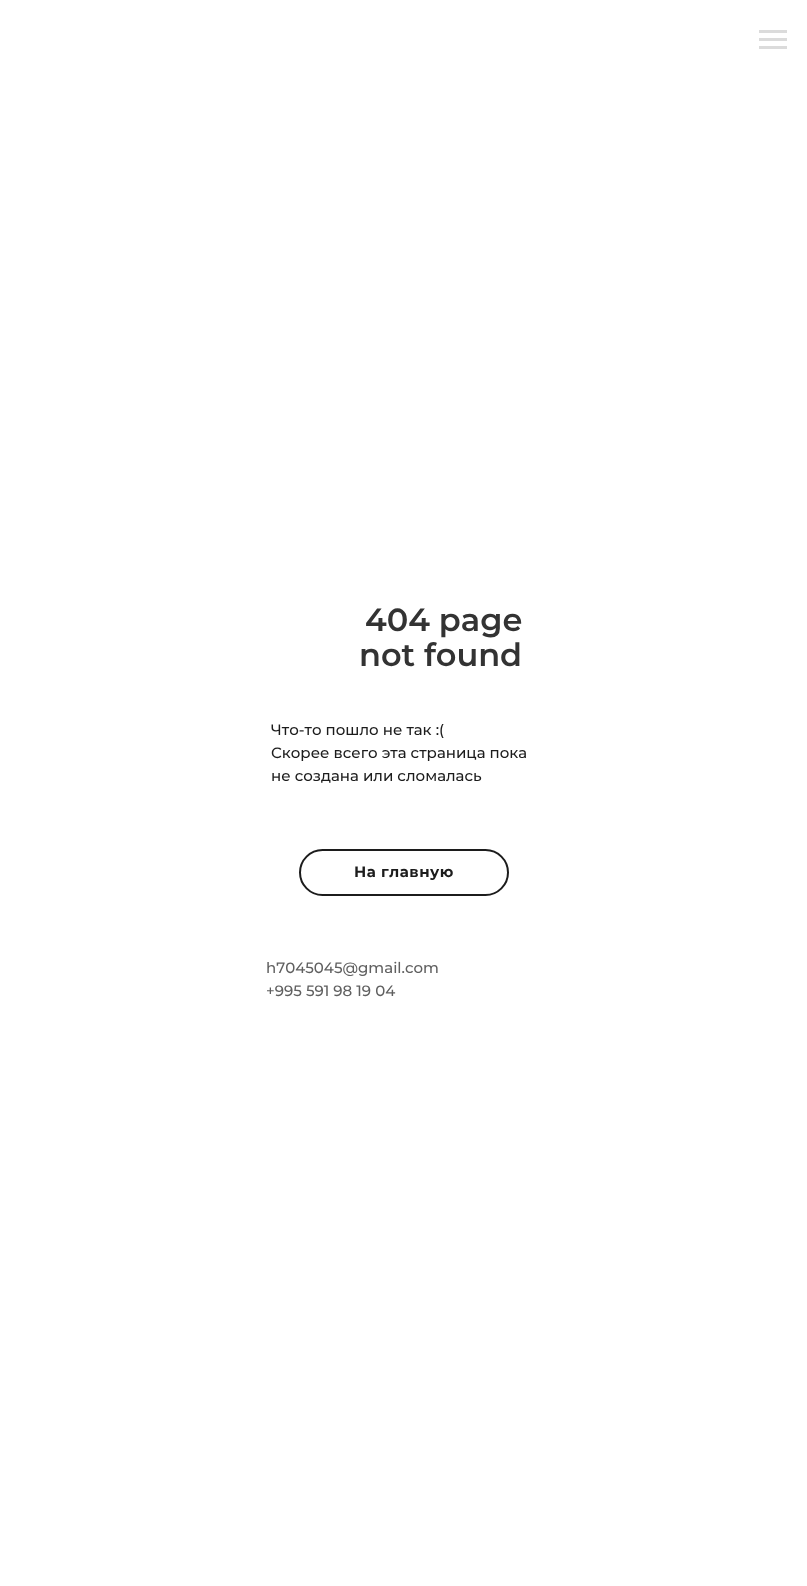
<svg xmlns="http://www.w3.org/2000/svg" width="807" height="1586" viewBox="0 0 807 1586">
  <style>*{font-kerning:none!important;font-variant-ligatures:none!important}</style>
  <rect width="100%" height="100%" fill="#ffffff"/>
  <rect x="759" y="30" width="28" height="3" fill="#dbdbdb"/>
  <rect x="759" y="38" width="28" height="3" fill="#dbdbdb"/>
  <rect x="759" y="46" width="28" height="3" fill="#dbdbdb"/>
  <text x="365" y="631" font-family="Montserrat" font-size="32" font-weight="600" fill="#333333">404 page</text>
  <text x="359" y="666" font-family="Montserrat" font-size="32" font-weight="600" fill="#333333">not found</text>
  <text x="271" y="735" font-family="Montserrat" font-size="15" font-weight="500" fill="#1c1c1c">Что-то пошло не так :(</text>
  <text x="271" y="758" font-family="Montserrat" font-size="15" font-weight="500" fill="#1c1c1c">Скорее всего эта страница пока</text>
  <text x="271" y="781" font-family="Montserrat" font-size="15" font-weight="500" fill="#1c1c1c">не создана или сломалась</text>
  <rect x="300" y="850" width="208" height="45" rx="22.5" fill="none" stroke="#1c1c1c" stroke-width="2"/>
  <text x="354" y="877" font-family="Montserrat" font-size="15" font-weight="bold" letter-spacing="0.5" fill="#1c1c1c">На главную</text>
  <text x="266" y="973" font-family="Montserrat" font-size="15" font-weight="500" fill="#606060">h7045045@gmail.com</text>
  <text x="266" y="996" font-family="Montserrat" font-size="15" font-weight="500" fill="#606060">+995 591 98 19 04</text>
</svg>
